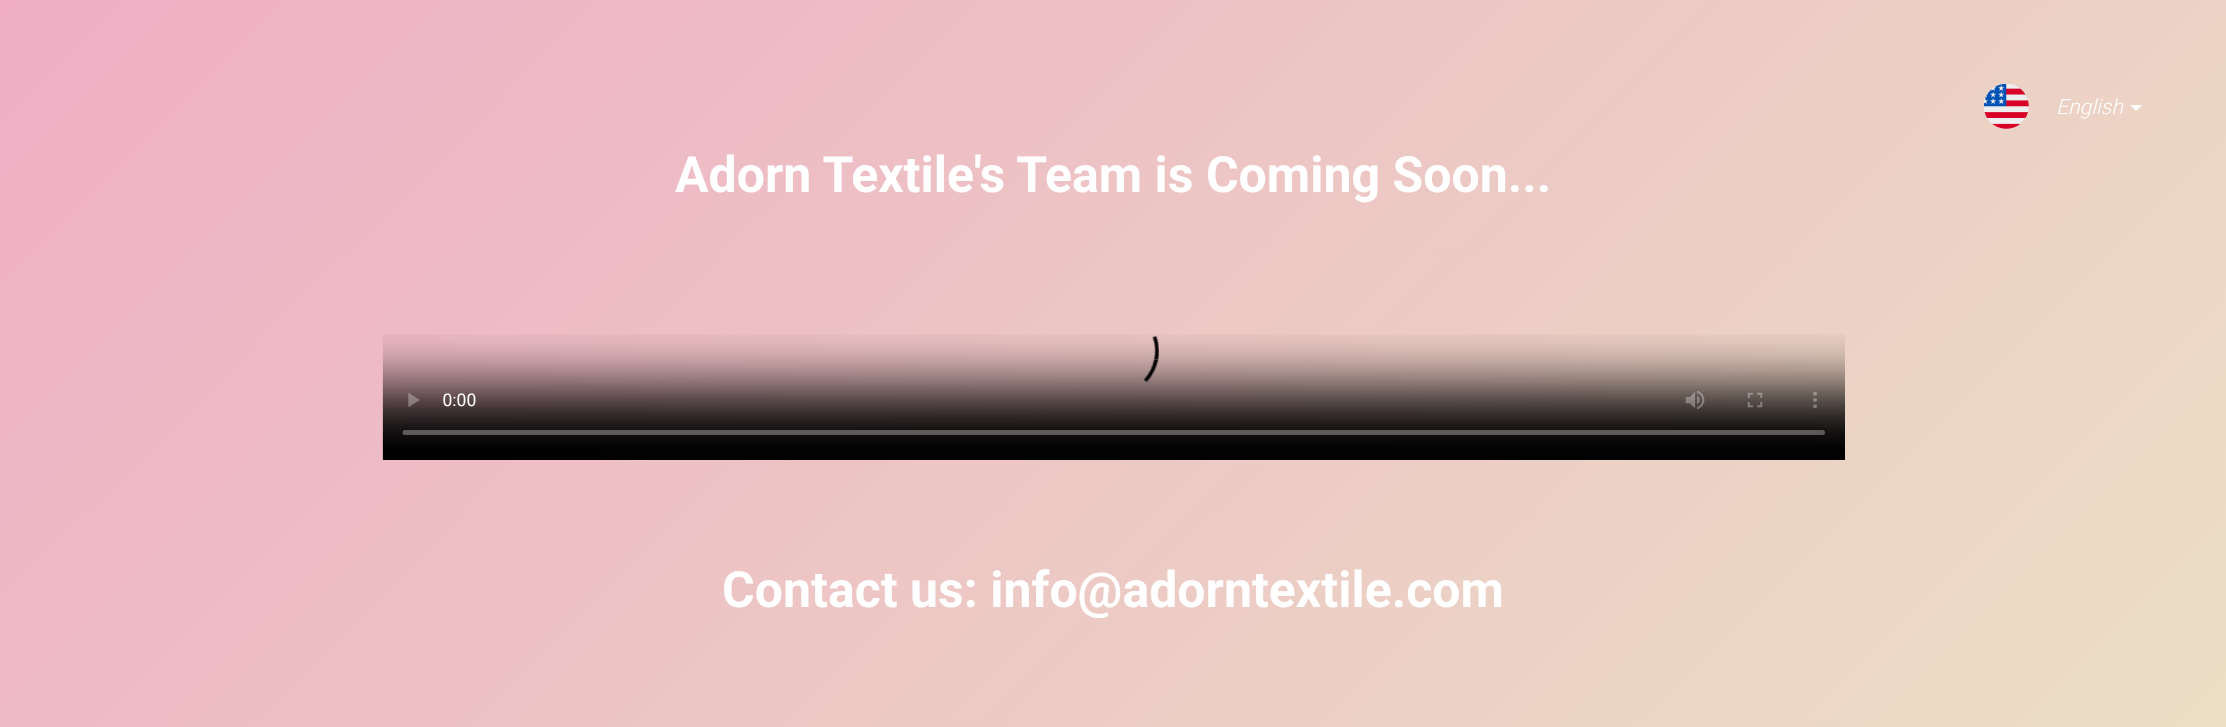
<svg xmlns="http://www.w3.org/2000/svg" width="2226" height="727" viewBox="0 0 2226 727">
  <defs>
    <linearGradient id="g1" gradientUnits="userSpaceOnUse" x1="375" y1="-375" x2="1852" y2="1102"><stop offset="0" stop-color="#efaec4"/><stop offset="1" stop-color="#ebdfc5"/></linearGradient>
  </defs>
  <rect width="100%" height="100%" fill="#ffffff"/>
  <rect x="0" y="0" width="2226" height="727" fill="url(#g1)"/>
  <image x="1984" y="84" width="45" height="45" href="img1.png"/>
  <text x="2056" y="114" font-family="Roboto" font-size="21" font-weight="300" font-style="italic" fill="#ffffff">English</text>
  <path d="M2130 105H2142.5L2136 111Z" fill="#ffffff"/>
  <text x="675" y="192" font-family="Roboto" font-size="50" font-weight="bold" fill="#ffffff">Adorn Textile's Team is Coming Soon...</text>
  <image x="382" y="334" width="1463" height="126" href="img2.png"/>
  <text x="722" y="607" font-family="Roboto" font-size="50" font-weight="bold" fill="#ffffff">Contact us: info@adorntextile.com</text>
</svg>
